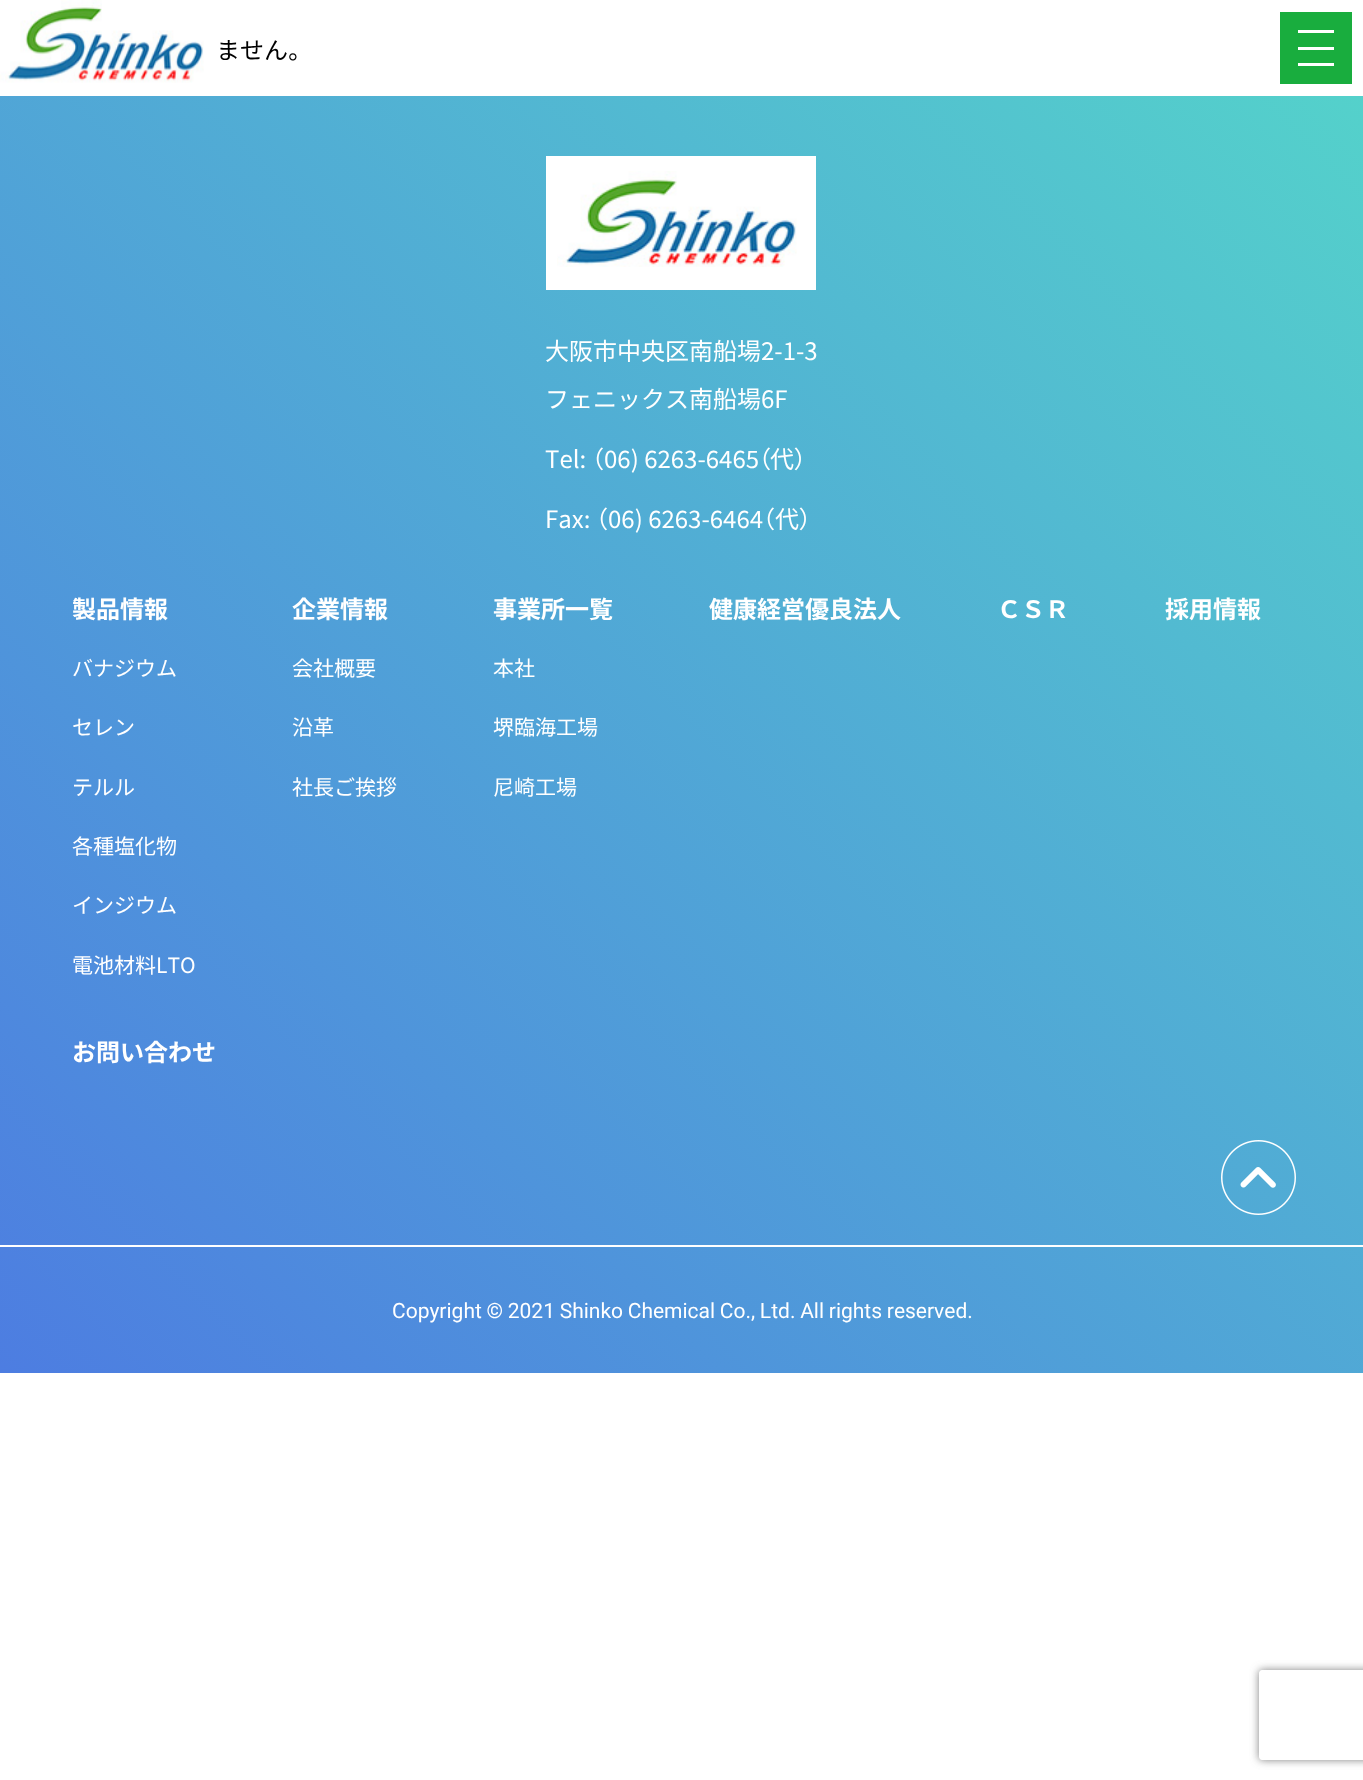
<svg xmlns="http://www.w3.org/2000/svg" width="1363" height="1780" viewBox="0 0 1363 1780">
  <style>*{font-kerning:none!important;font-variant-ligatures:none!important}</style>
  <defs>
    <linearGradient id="g1" gradientUnits="userSpaceOnUse" x1="22" y1="1394" x2="1342" y2="74"><stop offset="0" stop-color="#4d7de1"/><stop offset="1" stop-color="#54d1cb"/></linearGradient>
    <clipPath id="clip1"><path d="M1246 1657H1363V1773H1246ZM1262 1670H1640C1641.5 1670 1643 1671.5 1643 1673V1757C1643 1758.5 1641.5 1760 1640 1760H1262C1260.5 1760 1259 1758.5 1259 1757V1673C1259 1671.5 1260.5 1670 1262 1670Z" clip-rule="evenodd"/></clipPath>
    <filter id="blur1" x="-50%" y="-200%" width="200%" height="500%"><feGaussianBlur stdDeviation="4"/></filter>
  </defs>
  <rect width="100%" height="100%" fill="#ffffff"/>
  <image x="0" y="0" width="210" height="83" href="img1.png"/>
  <rect x="1280" y="12" width="72" height="72" fill="#19ad3e"/>
  <rect x="1298" y="30" width="36" height="3" fill="#ffffff"/>
  <rect x="1298" y="47" width="36" height="3" fill="#ffffff"/>
  <rect x="1298" y="63" width="36" height="3" fill="#ffffff"/>
  <text x="216" y="59" font-family="Noto Sans JP" font-size="24" fill="#000000">ません</text>
  <text x="288" y="59" font-family="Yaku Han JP" font-size="24" fill="#000000">。</text>
  <rect x="0" y="96" width="1363" height="1277" fill="url(#g1)"/>
  <rect x="546" y="156" width="270" height="134" fill="#ffffff"/>
  <image x="557" y="171" width="240" height="96" href="img2.png"/>
  <text x="545" y="360" font-family="Noto Sans JP" font-size="24" fill="#ffffff">大阪市中央区南船場2-1-3</text>
  <text x="545" y="408" font-family="Noto Sans JP" font-size="24" fill="#ffffff">フェニックス南船場6F</text>
  <text x="545" y="468" font-family="Noto Sans JP" font-size="24" fill="#ffffff">Tel:</text>
  <text x="592" y="468" font-family="Yaku Han JP" font-size="24" fill="#ffffff">（</text>
  <text x="604" y="468" font-family="Noto Sans JP" font-size="24" fill="#ffffff">06) 6263-6465</text>
  <text x="759" y="468" font-family="Yaku Han JP" font-size="24" fill="#ffffff">（</text>
  <text x="770" y="468" font-family="Noto Sans JP" font-size="24" fill="#ffffff">代</text>
  <text x="794" y="468" font-family="Yaku Han JP" font-size="24" fill="#ffffff">）</text>
  <text x="545" y="528" font-family="Noto Sans JP" font-size="24" fill="#ffffff">Fax:</text>
  <text x="596" y="528" font-family="Yaku Han JP" font-size="24" fill="#ffffff">（</text>
  <text x="608" y="528" font-family="Noto Sans JP" font-size="24" fill="#ffffff">06) 6263-6464</text>
  <text x="763" y="528" font-family="Yaku Han JP" font-size="24" fill="#ffffff">（</text>
  <text x="775" y="528" font-family="Noto Sans JP" font-size="24" fill="#ffffff">代</text>
  <text x="799" y="528" font-family="Yaku Han JP" font-size="24" fill="#ffffff">）</text>
  <text x="72" y="618" font-family="Noto Sans JP" font-size="24" font-weight="bold" fill="#ffffff">製品情報</text>
  <text x="72" y="676" font-family="Noto Sans JP" font-size="21" fill="#ffffff">バナジウム</text>
  <text x="72" y="735" font-family="Noto Sans JP" font-size="21" fill="#ffffff">セレン</text>
  <text x="72" y="795" font-family="Noto Sans JP" font-size="21" fill="#ffffff">テルル</text>
  <text x="72" y="854" font-family="Noto Sans JP" font-size="21" fill="#ffffff">各種塩化物</text>
  <text x="72" y="913" font-family="Noto Sans JP" font-size="21" fill="#ffffff">インジウム</text>
  <text x="72" y="973" font-family="Noto Sans JP" font-size="21" fill="#ffffff">電池材料LTO</text>
  <text x="292" y="618" font-family="Noto Sans JP" font-size="24" font-weight="bold" fill="#ffffff">企業情報</text>
  <text x="292" y="676" font-family="Noto Sans JP" font-size="21" fill="#ffffff">会社概要</text>
  <text x="292" y="735" font-family="Noto Sans JP" font-size="21" fill="#ffffff">沿革</text>
  <text x="292" y="795" font-family="Noto Sans JP" font-size="21" fill="#ffffff">社長ご挨拶</text>
  <text x="493" y="618" font-family="Noto Sans JP" font-size="24" font-weight="bold" fill="#ffffff">事業所一覧</text>
  <text x="493" y="676" font-family="Noto Sans JP" font-size="21" fill="#ffffff">本社</text>
  <text x="493" y="735" font-family="Noto Sans JP" font-size="21" fill="#ffffff">堺臨海工場</text>
  <text x="493" y="795" font-family="Noto Sans JP" font-size="21" fill="#ffffff">尼崎工場</text>
  <text x="709" y="618" font-family="Noto Sans JP" font-size="24" font-weight="bold" fill="#ffffff">健康経営優良法人</text>
  <text x="997" y="618" font-family="Noto Sans JP" font-size="24" font-weight="bold" fill="#ffffff">ＣＳＲ</text>
  <text x="1165" y="618" font-family="Noto Sans JP" font-size="24" font-weight="bold" fill="#ffffff">採用情報</text>
  <text x="72" y="1061" font-family="Noto Sans JP" font-size="24" font-weight="bold" fill="#ffffff">お問い合わせ</text>
  <rect x="0" y="1245" width="1363" height="2" fill="#ffffff"/>
  <text x="392" y="1318" word-spacing="-0.5" font-family="Roboto" font-size="21" fill="#ffffff">Copyright © 2021 Shinko Chemical Co., Ltd. All rights reserved.</text>
  <image x="1221" y="1140" width="75" height="75" href="img3.png"/>
  <g clip-path="url(#clip1)">
    <rect x="1259" y="1670" width="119" height="90" rx="3" fill="#808080" filter="url(#blur1)"/>
  </g>
</svg>
